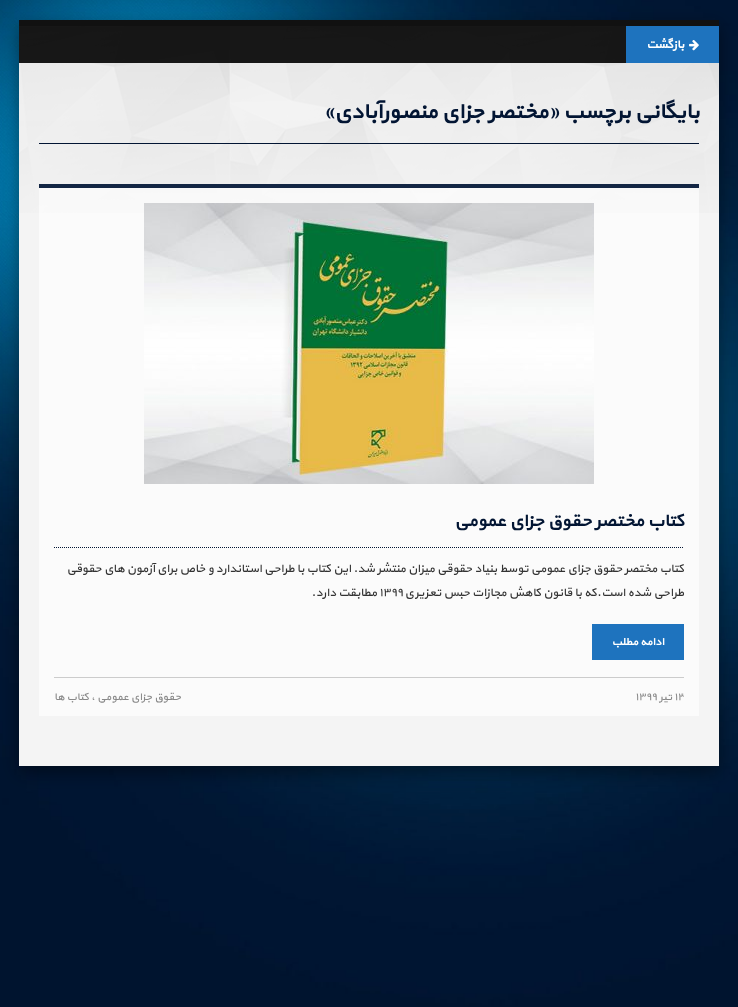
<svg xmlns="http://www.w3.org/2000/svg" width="738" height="1007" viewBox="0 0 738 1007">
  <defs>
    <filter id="blur1" x="-50%" y="-200%" width="200%" height="500%"><feGaussianBlur stdDeviation="9"/></filter>
    <clipPath id="clip1"><rect x="54" y="686" width="630" height="22"/></clipPath>
  </defs>
  <rect width="100%" height="100%" fill="#ffffff"/>
  <image x="0" y="0" width="738" height="1007" href="img1.png"/>
  <rect x="19" y="26" width="700" height="746" fill="#000000" fill-opacity="0.46" filter="url(#blur1)"/>
  <rect x="19" y="26" width="700" height="740" fill="#f4f4f4"/>
  <image x="19" y="26" width="700" height="187" href="img2.png"/>
  <rect x="19" y="20" width="700" height="6" fill="#111111"/>
  <rect x="19" y="26" width="607" height="37" fill="#000000" fill-opacity="0.9"/>
  <rect x="626" y="26" width="93" height="37" fill="#1e73be"/>
  <image x="689" y="40" width="10" height="11" href="img3.png"/>
  <text x="684" y="48" font-family="'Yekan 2'" font-size="12" font-weight="bold" direction="rtl" fill="#ffffff">بازگشت</text>
  <rect x="39" y="143" width="660" height="1" fill="#021533"/>
  <text x="699" y="118" font-family="'Yekan 2'" font-size="22" font-weight="bold" direction="rtl" fill="#021533">بایگانی برچسب «مختصر جزای منصورآبادی»</text>
  <rect x="39" y="188" width="660" height="528" fill="#ffffff" fill-opacity="0.6"/>
  <rect x="39" y="184" width="660" height="4" fill="#132644"/>
  <rect x="54" y="677" width="630" height="1" fill="#cccccc"/>
  <image x="144" y="203" width="450" height="281" href="img4.png"/>
  <path d="M54 547.5H684" fill="none" stroke="#021533" stroke-dasharray="1 1"/>
  <text x="684" y="526" font-family="'Yekan 2'" font-size="18" font-weight="bold" direction="rtl" fill="#021533">کتاب مختصر حقوق جزای عمومی</text>
  <text x="684" y="572" font-family="'Yekan 2'" font-size="12" direction="rtl" fill="#333333">کتاب مختصر حقوق جزای عمومی توسط بنیاد حقوقی میزان منتشر شد. این کتاب با طراحی استاندارد و خاص برای آزمون های حقوقی</text>
  <text x="684" y="596" font-family="'Yekan 2'" font-size="12" direction="rtl" fill="#333333">طراحی شده است.که با قانون کاهش مجازات حبس تعزیری</text>
  <text x="379" y="596" font-family="'Yekan 2'" font-size="12" fill="#333333">۱۳۹۹</text>
  <text x="377" y="596" font-family="'Yekan 2'" font-size="12" direction="rtl" fill="#333333">مطابقت دارد.</text>
  <rect x="592" y="624" width="92" height="36" fill="#1e73be"/>
  <text x="664" y="645" font-family="'Yekan 2'" font-size="11" font-weight="bold" direction="rtl" fill="#ffffff">ادامه مطلب</text>
  <g clip-path="url(#clip1)">
    <text x="674" y="700" font-family="'Yekan 2'" font-size="11" fill="#888888">۱۳</text>
  </g>
  <text x="672" y="700" font-family="'Yekan 2'" font-size="11" direction="rtl" fill="#888888">تیر</text>
  <text x="635" y="700" font-family="'Yekan 2'" font-size="11" fill="#888888">۱۳۹۹</text>
  <text x="181" y="700" font-family="'Yekan 2'" font-size="11" direction="rtl" fill="#888888">حقوق جزای عمومی</text>
  <text x="91" y="700" font-family="'Yekan 2'" font-size="11" fill="#888888">،</text>
  <text x="89" y="700" font-family="'Yekan 2'" font-size="11" direction="rtl" fill="#888888">کتاب ها</text>
</svg>
